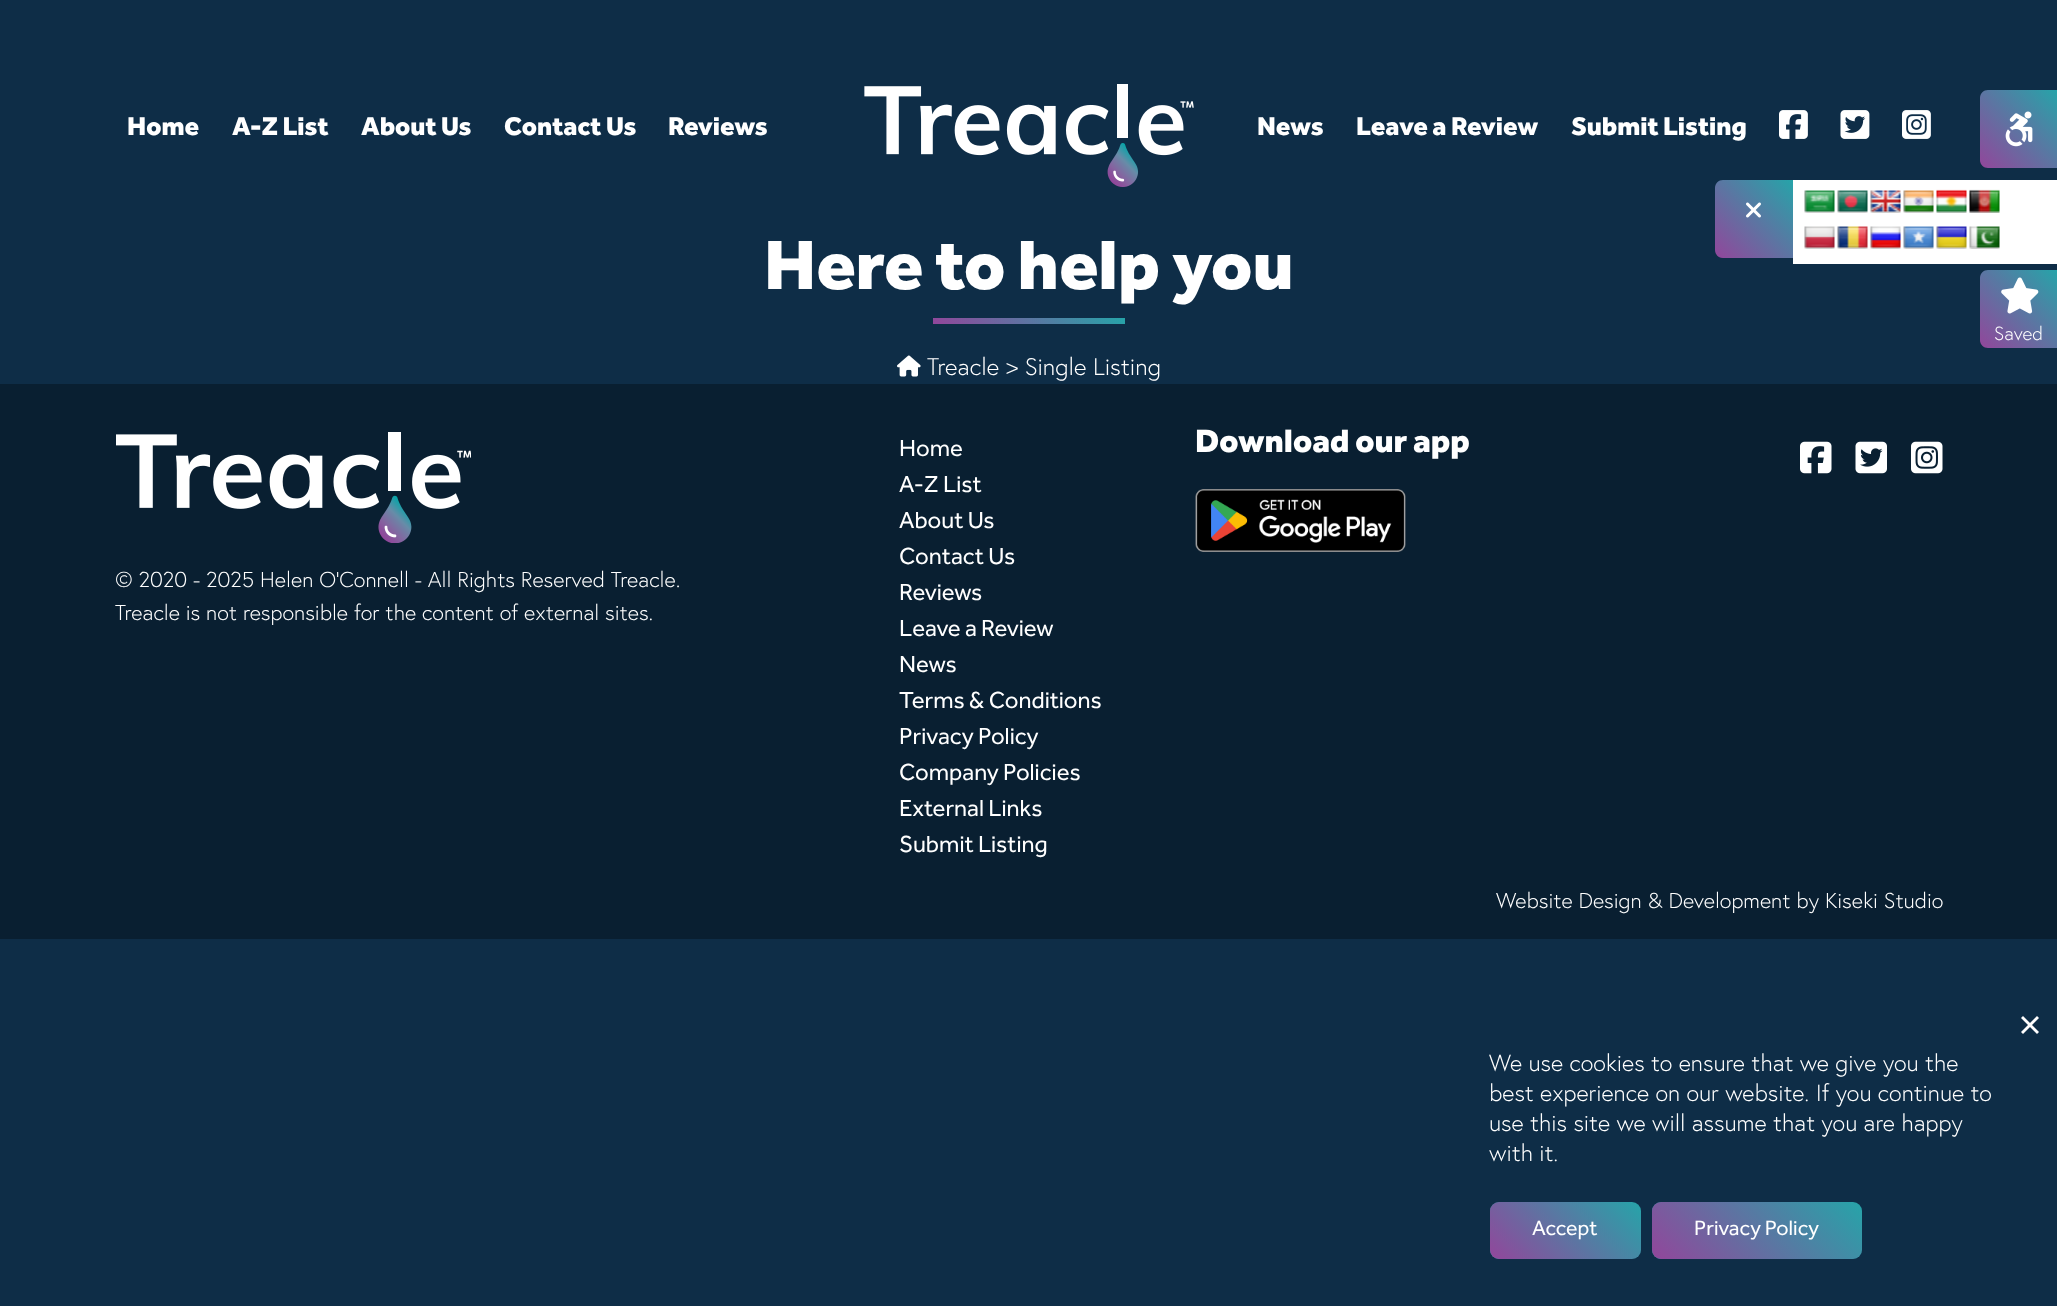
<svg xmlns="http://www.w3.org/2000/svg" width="2057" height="1306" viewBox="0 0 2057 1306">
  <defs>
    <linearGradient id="g1" gradientUnits="userSpaceOnUse" x1="1980" y1="168" x2="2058" y2="90"><stop offset="0" stop-color="#92469b"/><stop offset="1" stop-color="#26a4a9"/></linearGradient>
    <linearGradient id="g2" gradientUnits="userSpaceOnUse" x1="980" y1="371" x2="1079" y2="272"><stop offset="0" stop-color="#92469b"/><stop offset="1" stop-color="#26a4a9"/></linearGradient>
    <linearGradient id="g3" gradientUnits="userSpaceOnUse" x1="1715" y1="258" x2="1793" y2="180"><stop offset="0" stop-color="#92469b"/><stop offset="1" stop-color="#26a4a9"/></linearGradient>
    <linearGradient id="g4" gradientUnits="userSpaceOnUse" x1="1980" y1="348" x2="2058" y2="270"><stop offset="0" stop-color="#92469b"/><stop offset="1" stop-color="#26a4a9"/></linearGradient>
    <linearGradient id="g5" gradientUnits="userSpaceOnUse" x1="1513" y1="1282" x2="1617" y2="1178"><stop offset="0" stop-color="#92469b"/><stop offset="1" stop-color="#92469b" stop-opacity="0"/></linearGradient>
    <linearGradient id="g6" gradientUnits="userSpaceOnUse" x1="1690" y1="1297" x2="1823" y2="1163"><stop offset="0" stop-color="#92469b"/><stop offset="1" stop-color="#92469b" stop-opacity="0"/></linearGradient>
  </defs>
  <rect width="100%" height="100%" fill="#0e2d47"/>
  <path d="M1988 90H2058V168H1988C1983.5 168 1980 164.5 1980 160V98C1980 93.5 1983.5 90 1988 90Z" fill="url(#g1)"/>
  <image x="2005" y="111" width="28" height="36" href="img1.png"/>
  <image x="864" y="84" width="330" height="103" href="img2.png"/>
  <text x="127" y="135" font-family="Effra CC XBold" font-size="26.5" font-weight="bold" fill="#ffffff">Home</text>
  <text x="232" y="135" font-family="Effra CC XBold" font-size="26.5" font-weight="bold" fill="#ffffff">A-Z List</text>
  <text x="361" y="135" font-family="Effra CC XBold" font-size="26.5" font-weight="bold" fill="#ffffff">About Us</text>
  <text x="504" y="135" font-family="Effra CC XBold" font-size="26.5" font-weight="bold" fill="#ffffff">Contact Us</text>
  <text x="668" y="135" font-family="Effra CC XBold" font-size="26.5" font-weight="bold" fill="#ffffff">Reviews</text>
  <text x="1257" y="135" font-family="Effra CC XBold" font-size="26.5" font-weight="bold" fill="#ffffff">News</text>
  <text x="1356" y="135" font-family="Effra CC XBold" font-size="26.5" font-weight="bold" fill="#ffffff">Leave a Review</text>
  <text x="1571" y="135" font-family="Effra CC XBold" font-size="26.5" font-weight="bold" fill="#ffffff">Submit Listing</text>
  <image x="1779" y="110" width="29" height="29" href="img3.png"/>
  <image x="1840" y="110" width="30" height="29" href="img4.png"/>
  <image x="1902" y="110" width="29" height="29" href="img5.png"/>
  <text x="764" y="289" font-family="Effra CC XBold" font-size="72" font-weight="bold" fill="#ffffff">Here to help you</text>
  <rect x="933" y="318" width="192" height="6" fill="url(#g2)"/>
  <rect x="1793" y="180" width="264" height="84" fill="#ffffff"/>
  <path d="M1723 180H1793V258H1723C1718.5 258 1715 254.5 1715 250V188C1715 183.5 1718.5 180 1723 180Z" fill="url(#g3)"/>
  <image x="1746" y="202" width="15" height="16" href="img6.png"/>
  <image x="1804" y="190" width="31" height="23" href="img7.png"/>
  <image x="1837" y="190" width="31" height="23" href="img8.png"/>
  <image x="1870" y="190" width="31" height="23" href="img9.png"/>
  <image x="1903" y="190" width="31" height="23" href="img10.png"/>
  <image x="1936" y="189" width="31" height="24" href="img11.png"/>
  <image x="1969" y="189" width="31" height="24" href="img12.png"/>
  <image x="1804" y="226" width="31" height="23" href="img13.png"/>
  <image x="1837" y="226" width="31" height="23" href="img14.png"/>
  <image x="1870" y="226" width="31" height="23" href="img15.png"/>
  <image x="1903" y="226" width="31" height="23" href="img16.png"/>
  <image x="1936" y="226" width="31" height="23" href="img17.png"/>
  <image x="1969" y="226" width="31" height="23" href="img18.png"/>
  <path d="M1988 270H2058V348H1988C1983.5 348 1980 344.5 1980 340V278C1980 273.5 1983.5 270 1988 270Z" fill="url(#g4)"/>
  <image x="2001" y="277" width="38" height="37" href="img19.png"/>
  <text x="1994" y="340" font-family="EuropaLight" font-size="19" font-weight="300" fill="#ffffff">Saved</text>
  <image x="897" y="355" width="24" height="22" href="img20.png"/>
  <text x="927" y="375" font-family="EuropaLight" font-size="24" font-weight="300" fill="#ffffff">Treacle &gt; Single Listing</text>
  <rect x="0" y="384" width="2057" height="555" fill="#091f31"/>
  <text x="899" y="456" font-family="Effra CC" font-size="24" fill="#ffffff">Home</text>
  <text x="899" y="492" font-family="Effra CC" font-size="24" fill="#ffffff">A-Z List</text>
  <text x="899" y="528" font-family="Effra CC" font-size="24" fill="#ffffff">About Us</text>
  <text x="899" y="564" font-family="Effra CC" font-size="24" fill="#ffffff">Contact Us</text>
  <text x="899" y="600" font-family="Effra CC" font-size="24" fill="#ffffff">Reviews</text>
  <text x="899" y="636" font-family="Effra CC" font-size="24" fill="#ffffff">Leave a Review</text>
  <text x="899" y="672" font-family="Effra CC" font-size="24" fill="#ffffff">News</text>
  <text x="899" y="708" font-family="Effra CC" font-size="24" fill="#ffffff">Terms &amp; Conditions</text>
  <text x="899" y="744" font-family="Effra CC" font-size="24" fill="#ffffff">Privacy Policy</text>
  <text x="899" y="780" font-family="Effra CC" font-size="24" fill="#ffffff">Company Policies</text>
  <text x="899" y="816" font-family="Effra CC" font-size="24" fill="#ffffff">External Links</text>
  <text x="899" y="852" font-family="Effra CC" font-size="24" fill="#ffffff">Submit Listing</text>
  <text x="1195" y="452" font-family="Effra CC XBold" font-size="33.5" font-weight="bold" fill="#ffffff">Download our app</text>
  <image x="1195" y="489" width="211" height="63" href="img21.png"/>
  <image x="1800" y="441" width="32" height="33" href="img22.png"/>
  <image x="1855" y="441" width="32" height="33" href="img23.png"/>
  <image x="1911" y="441" width="32" height="33" href="img24.png"/>
  <image x="116" y="432" width="355" height="111" href="img25.png"/>
  <text x="115" y="587" font-family="EuropaLight" font-size="21.6" font-weight="300" fill="#ffffff">© 2020 - 2025 Helen O'Connell - All Rights Reserved Treacle.</text>
  <text x="115" y="620" font-family="EuropaLight" font-size="21.6" font-weight="300" fill="#ffffff">Treacle is not responsible for the content of external sites.</text>
  <text x="1496" y="908" font-family="EuropaLight" font-size="21.6" font-weight="300" fill="#ffffff">Website Design &amp; Development by Kiseki Studio</text>
  <path d="M2037 1016L2039 1018L2023 1034L2021 1032Z" fill="#ffffff"/>
  <path d="M2021 1018L2023 1016L2039 1032L2037 1034Z" fill="#ffffff"/>
  <text x="1489" y="1071" font-family="EuropaLight" font-size="23.4" font-weight="300" fill="#ffffff">We use cookies to ensure that we give you the</text>
  <text x="1489" y="1101" font-family="EuropaLight" font-size="23.4" font-weight="300" fill="#ffffff">best experience on our website. If you continue to</text>
  <text x="1489" y="1131" font-family="EuropaLight" font-size="23.4" font-weight="300" fill="#ffffff">use this site we will assume that you are happy</text>
  <text x="1489" y="1161" font-family="EuropaLight" font-size="23.4" font-weight="300" fill="#ffffff">with it.</text>
  <rect x="1490" y="1202" width="151" height="57" rx="9" fill="#26a4a9"/>
  <rect x="1490" y="1202" width="151" height="57" rx="9" fill="url(#g5)"/>
  <text x="1532" y="1235" font-family="Effra CC" font-size="21.5" fill="#ffffff">Accept</text>
  <rect x="1652" y="1202" width="210" height="57" rx="9" fill="#26a4a9"/>
  <rect x="1652" y="1202" width="210" height="57" rx="9" fill="url(#g6)"/>
  <text x="1694" y="1235" font-family="Effra CC" font-size="21.5" fill="#ffffff">Privacy Policy</text>
</svg>
